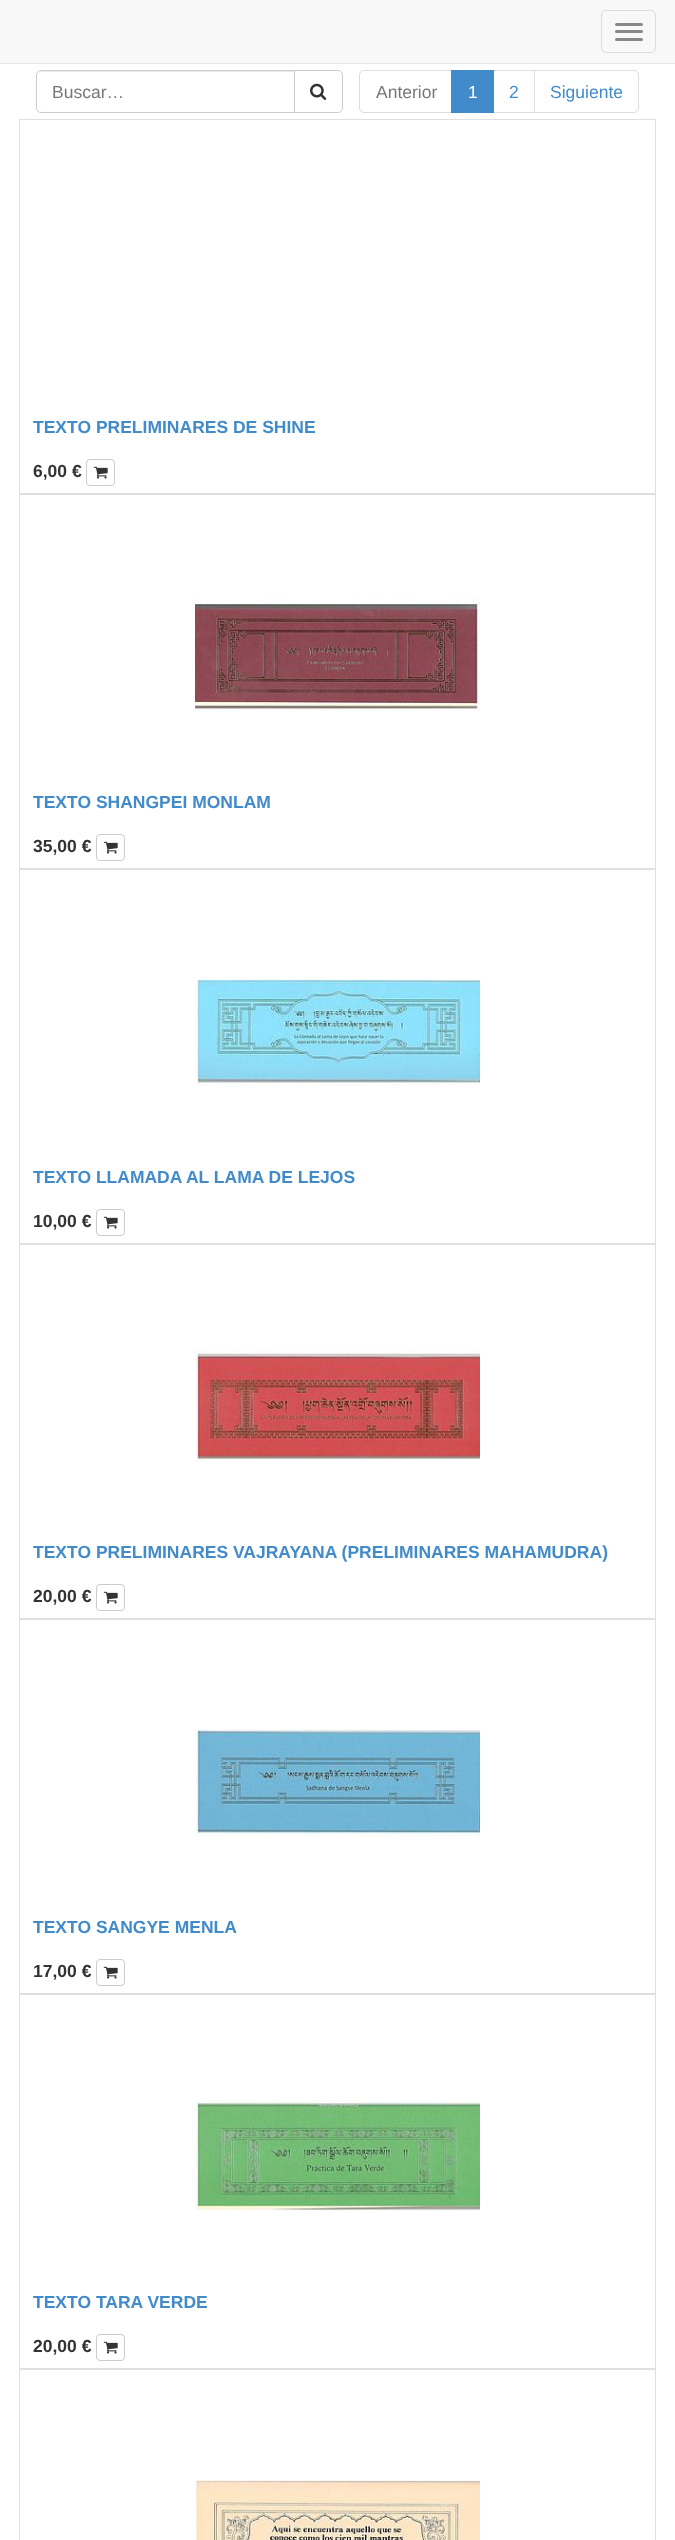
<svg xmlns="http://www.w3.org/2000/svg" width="675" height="2540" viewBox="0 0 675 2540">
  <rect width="100%" height="100%" fill="#ffffff"/>
  <rect x="0" y="0" width="675" height="63" fill="#f8f8f8"/>
  <rect x="0" y="63" width="675" height="1" fill="#e7e7e7"/>
  <rect x="601.5" y="10.5" width="54" height="42" rx="4.5" fill="none" stroke="#dddddd"/>
  <rect x="615" y="23" width="28" height="3" rx="1.5" fill="#888888"/>
  <rect x="615" y="30" width="28" height="3" rx="1.5" fill="#888888"/>
  <rect x="615" y="38" width="28" height="3" rx="1.5" fill="#888888"/>
  <path d="M294.5 70.5H338C340.5 70.5 342.5 72.5 342.5 75V108C342.5 110.5 340.5 112.5 338 112.5H294.5Z" fill="none" stroke="#cccccc"/>
  <path d="M41 70H295V113H41C38 113 36 111 36 108V75C36 72 38 70 41 70Z" fill="#ffffff"/>
  <path d="M41 72H294V71H42C40 71 38 73 38 75V76C38 74 39 72 41 72Z" fill="#ececec"/>
  <path d="M41 70.5H294.5V112.5H41C38.5 112.5 36.5 110.5 36.5 108V75C36.5 72.5 38.5 70.5 41 70.5Z" fill="none" stroke="#cccccc"/>
  <text x="52" y="98" font-family="Liberation Sans" font-size="17.5" fill="#777777">Buscar…</text>
  <image x="310" y="83" width="17" height="17" href="img1.png"/>
  <path d="M364 70.5H452.5V112.5H364C361.5 112.5 359.5 110.5 359.5 108V75C359.5 72.5 361.5 70.5 364 70.5Z" fill="none" stroke="#dddddd"/>
  <text x="376" y="98" font-family="Liberation Sans" font-size="17.5" fill="#777777">Anterior</text>
  <rect x="493.5" y="70.5" width="41" height="42" fill="none" stroke="#dddddd"/>
  <rect x="451" y="70" width="43" height="43" fill="#428bca"/>
  <text x="468" y="98" font-family="Liberation Sans" font-size="17.5" fill="#ffffff">1</text>
  <text x="509" y="98" font-family="Liberation Sans" font-size="17.5" fill="#428bca">2</text>
  <path d="M534.5 70.5H634C636.5 70.5 638.5 72.5 638.5 75V108C638.5 110.5 636.5 112.5 634 112.5H534.5Z" fill="#ffffff" stroke="#dddddd"/>
  <text x="550" y="98" font-family="Liberation Sans" font-size="17.5" fill="#428bca">Siguiente</text>
  <rect x="19.5" y="119.5" width="636" height="374" fill="none" stroke="#e0e0e0"/>
  <text x="33" y="433" font-family="Liberation Sans" font-size="17.5" font-weight="bold" fill="#428bca">TEXTO PRELIMINARES DE SHINE</text>
  <text x="33" y="477" font-family="Liberation Sans" font-size="17.5" font-weight="bold" fill="#333333">6,00 €</text>
  <rect x="86.5" y="459.5" width="28" height="26" rx="3.5" fill="none" stroke="#cccccc"/>
  <image x="93" y="466" width="15" height="13" href="img2.png"/>
  <rect x="19.5" y="494.5" width="636" height="374" fill="none" stroke="#e0e0e0"/>
  <image x="195" y="598" width="285" height="114" href="img3.png"/>
  <text x="33" y="808" font-family="Liberation Sans" font-size="17.5" font-weight="bold" fill="#428bca">TEXTO SHANGPEI MONLAM</text>
  <text x="33" y="852" font-family="Liberation Sans" font-size="17.5" font-weight="bold" fill="#333333">35,00 €</text>
  <rect x="96.5" y="834.5" width="28" height="26" rx="3.5" fill="none" stroke="#cccccc"/>
  <image x="103" y="841" width="15" height="13" href="img2.png"/>
  <rect x="19.5" y="869.5" width="636" height="374" fill="none" stroke="#e0e0e0"/>
  <image x="195" y="979" width="285" height="107" href="img4.png"/>
  <text x="33" y="1183" font-family="Liberation Sans" font-size="17.5" font-weight="bold" fill="#428bca">TEXTO LLAMADA AL LAMA DE LEJOS</text>
  <text x="33" y="1227" font-family="Liberation Sans" font-size="17.5" font-weight="bold" fill="#333333">10,00 €</text>
  <rect x="96.5" y="1209.5" width="28" height="26" rx="3.5" fill="none" stroke="#cccccc"/>
  <image x="103" y="1216" width="15" height="13" href="img2.png"/>
  <rect x="19.5" y="1244.5" width="636" height="374" fill="none" stroke="#e0e0e0"/>
  <image x="195" y="1350" width="285" height="112" href="img5.png"/>
  <text x="33" y="1558" font-family="Liberation Sans" font-size="17.5" font-weight="bold" fill="#428bca">TEXTO PRELIMINARES VAJRAYANA (PRELIMINARES MAHAMUDRA)</text>
  <text x="33" y="1602" font-family="Liberation Sans" font-size="17.5" font-weight="bold" fill="#333333">20,00 €</text>
  <rect x="96.5" y="1584.5" width="28" height="26" rx="3.5" fill="none" stroke="#cccccc"/>
  <image x="103" y="1591" width="15" height="13" href="img2.png"/>
  <rect x="19.5" y="1619.5" width="636" height="374" fill="none" stroke="#e0e0e0"/>
  <image x="195" y="1729" width="285" height="108" href="img6.png"/>
  <text x="33" y="1933" font-family="Liberation Sans" font-size="17.5" font-weight="bold" fill="#428bca">TEXTO SANGYE MENLA</text>
  <text x="33" y="1977" font-family="Liberation Sans" font-size="17.5" font-weight="bold" fill="#333333">17,00 €</text>
  <rect x="96.5" y="1959.5" width="28" height="26" rx="3.5" fill="none" stroke="#cccccc"/>
  <image x="103" y="1966" width="15" height="13" href="img2.png"/>
  <rect x="19.5" y="1994.5" width="636" height="374" fill="none" stroke="#e0e0e0"/>
  <image x="195" y="2100" width="285" height="112" href="img7.png"/>
  <text x="33" y="2308" font-family="Liberation Sans" font-size="17.5" font-weight="bold" fill="#428bca">TEXTO TARA VERDE</text>
  <text x="33" y="2352" font-family="Liberation Sans" font-size="17.5" font-weight="bold" fill="#333333">20,00 €</text>
  <rect x="96.5" y="2334.5" width="28" height="26" rx="3.5" fill="none" stroke="#cccccc"/>
  <image x="103" y="2341" width="15" height="13" href="img2.png"/>
  <rect x="19.5" y="2369.5" width="636" height="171" fill="none" stroke="#e0e0e0"/>
  <image x="195" y="2479" width="285" height="61" href="img8.png"/>
</svg>
